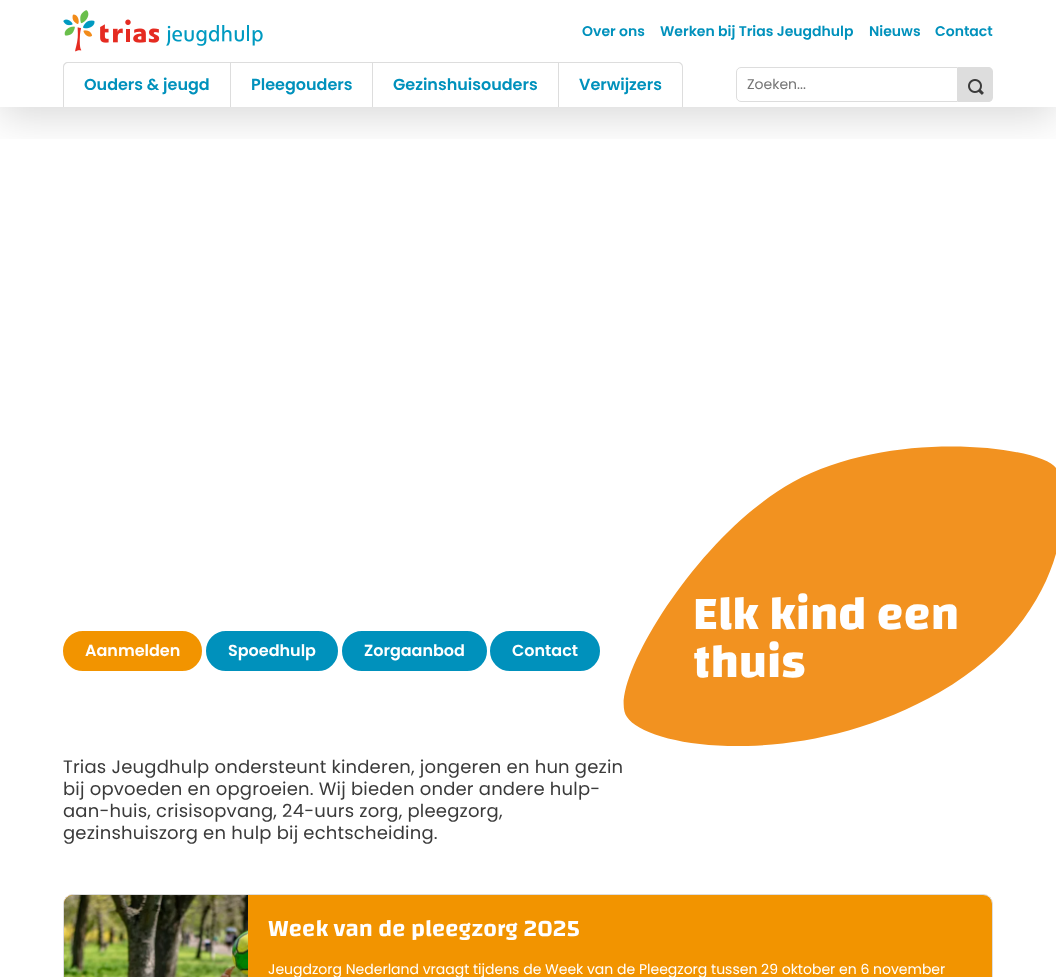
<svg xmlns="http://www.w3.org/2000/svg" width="1056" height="977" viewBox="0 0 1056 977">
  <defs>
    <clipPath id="clip1"><rect x="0" y="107" width="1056" height="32"/></clipPath>
    <filter id="blur1" x="-50%" y="-200%" width="200%" height="500%"><feGaussianBlur stdDeviation="20"/></filter>
    <clipPath id="clip2"><rect x="623" y="446" width="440" height="300"/></clipPath>
  </defs>
  <rect width="100%" height="100%" fill="#ffffff"/>
  <g clip-path="url(#clip1)">
    <rect x="0" y="10" width="1056" height="107" fill="#000000" fill-opacity="0.15" filter="url(#blur1)"/>
  </g>
  <image x="63" y="10" width="200" height="42" href="img1.png"/>
  <text x="582" y="36" font-family="Poppins" font-size="14" font-weight="600" fill="#0091bc">Over ons</text>
  <text x="660" y="36" font-family="Poppins" font-size="14" font-weight="600" fill="#0091bc">Werken bij Trias Jeugdhulp</text>
  <text x="869" y="36" font-family="Poppins" font-size="14" font-weight="600" fill="#0091bc">Nieuws</text>
  <text x="935" y="36" font-family="Poppins" font-size="14" font-weight="600" fill="#0091bc">Contact</text>
  <path d="M68 62H231V107H63V67C63 64 65 62 68 62ZM68 63H230V107H64V67C64 65 66 63 68 63Z" fill="#dddddd" fill-rule="evenodd"/>
  <text x="84" y="90" font-family="Poppins" font-size="16" font-weight="600" fill="#0091bc">Ouders &amp; jeugd</text>
  <rect x="231" y="62" width="328" height="1" fill="#dddddd"/>
  <rect x="372" y="62" width="1" height="45" fill="#dddddd"/>
  <text x="251" y="90" font-family="Poppins" font-size="16" font-weight="600" fill="#0091bc">Pleegouders</text>
  <rect x="558" y="62" width="1" height="45" fill="#dddddd"/>
  <text x="393" y="90" font-family="Poppins" font-size="16" font-weight="600" fill="#0091bc">Gezinshuisouders</text>
  <path d="M559 62H678C681 62 683 64 683 67V107H559ZM559 63H678C680 63 682 65 682 67V107H559Z" fill="#dddddd" fill-rule="evenodd"/>
  <text x="579" y="90" font-family="Poppins" font-size="16" font-weight="600" fill="#0091bc">Verwijzers</text>
  <path d="M741 67.5H957.5V101.5H741C738.5 101.5 736.5 99.5 736.5 97V72C736.5 69.5 738.5 67.5 741 67.5Z" fill="none" stroke="#dddddd"/>
  <text x="747" y="89" font-family="Poppins" font-size="14" fill="#757575">Zoeken...</text>
  <path d="M958 67H988C991 67 993 69 993 72V97C993 100 991 102 988 102H958Z" fill="#dddddd"/>
  <image x="968" y="79" width="16" height="16" href="img2.png"/>
  <rect x="64" y="632" width="137" height="38" rx="19" fill="#f29400" stroke="#f29400" stroke-width="2"/>
  <text x="85" y="656" font-family="Poppins" font-size="16" font-weight="600" fill="#ffffff">Aanmelden</text>
  <rect x="207" y="632" width="130" height="38" rx="19" fill="#0091bc" stroke="#0091bc" stroke-width="2"/>
  <text x="228" y="656" font-family="Poppins" font-size="16" font-weight="600" fill="#ffffff">Spoedhulp</text>
  <rect x="343" y="632" width="143" height="38" rx="19" fill="#0091bc" stroke="#0091bc" stroke-width="2"/>
  <text x="364" y="656" font-family="Poppins" font-size="16" font-weight="600" fill="#ffffff">Zorgaanbod</text>
  <rect x="491" y="632" width="108" height="38" rx="19" fill="#0091bc" stroke="#0091bc" stroke-width="2"/>
  <text x="512" y="656" font-family="Poppins" font-size="16" font-weight="600" fill="#ffffff">Contact</text>
  <g clip-path="url(#clip2)">
    <path d="M627 717C648 749 803 771 940 692C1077 612 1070 490 1056 468C1041 446 890 428 793 482C695 536 605 688 627 717" fill="#f29220"/>
  </g>
  <text x="693" y="629" font-family="Changa" font-size="48" font-weight="bold" fill="#ffffff">Elk kind een</text>
  <text x="693" y="677" font-family="Changa" font-size="48" font-weight="bold" fill="#ffffff">thuis</text>
  <text x="63" y="773" font-family="Poppins" font-size="18" letter-spacing="0.2" fill="#3b3b3b">Trias Jeugdhulp ondersteunt kinderen, jongeren en hun gezin</text>
  <text x="63" y="795" font-family="Poppins" font-size="18" letter-spacing="0.2" fill="#3b3b3b">bij opvoeden en opgroeien. Wij bieden onder andere hulp-</text>
  <text x="63" y="817" font-family="Poppins" font-size="18" letter-spacing="0.2" fill="#3b3b3b">aan-huis, crisisopvang, 24-uurs zorg, pleegzorg,</text>
  <text x="63" y="839" font-family="Poppins" font-size="18" letter-spacing="0.2" fill="#3b3b3b">gezinshuiszorg en hulp bij echtscheiding.</text>
  <rect x="63.5" y="894.5" width="929" height="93" rx="9.5" fill="#f29400" stroke="#dddddd"/>
  <image x="64" y="895" width="184" height="82" href="img3.png"/>
  <text x="268" y="936" font-family="Changa" font-size="24" font-weight="600" fill="#ffffff">Week van de pleegzorg 2025</text>
  <text x="268" y="974" font-family="Poppins" font-size="14" fill="#ffffff">Jeugdzorg Nederland vraagt tijdens de Week van de Pleegzorg tussen 29 oktober en 6 november</text>
</svg>
